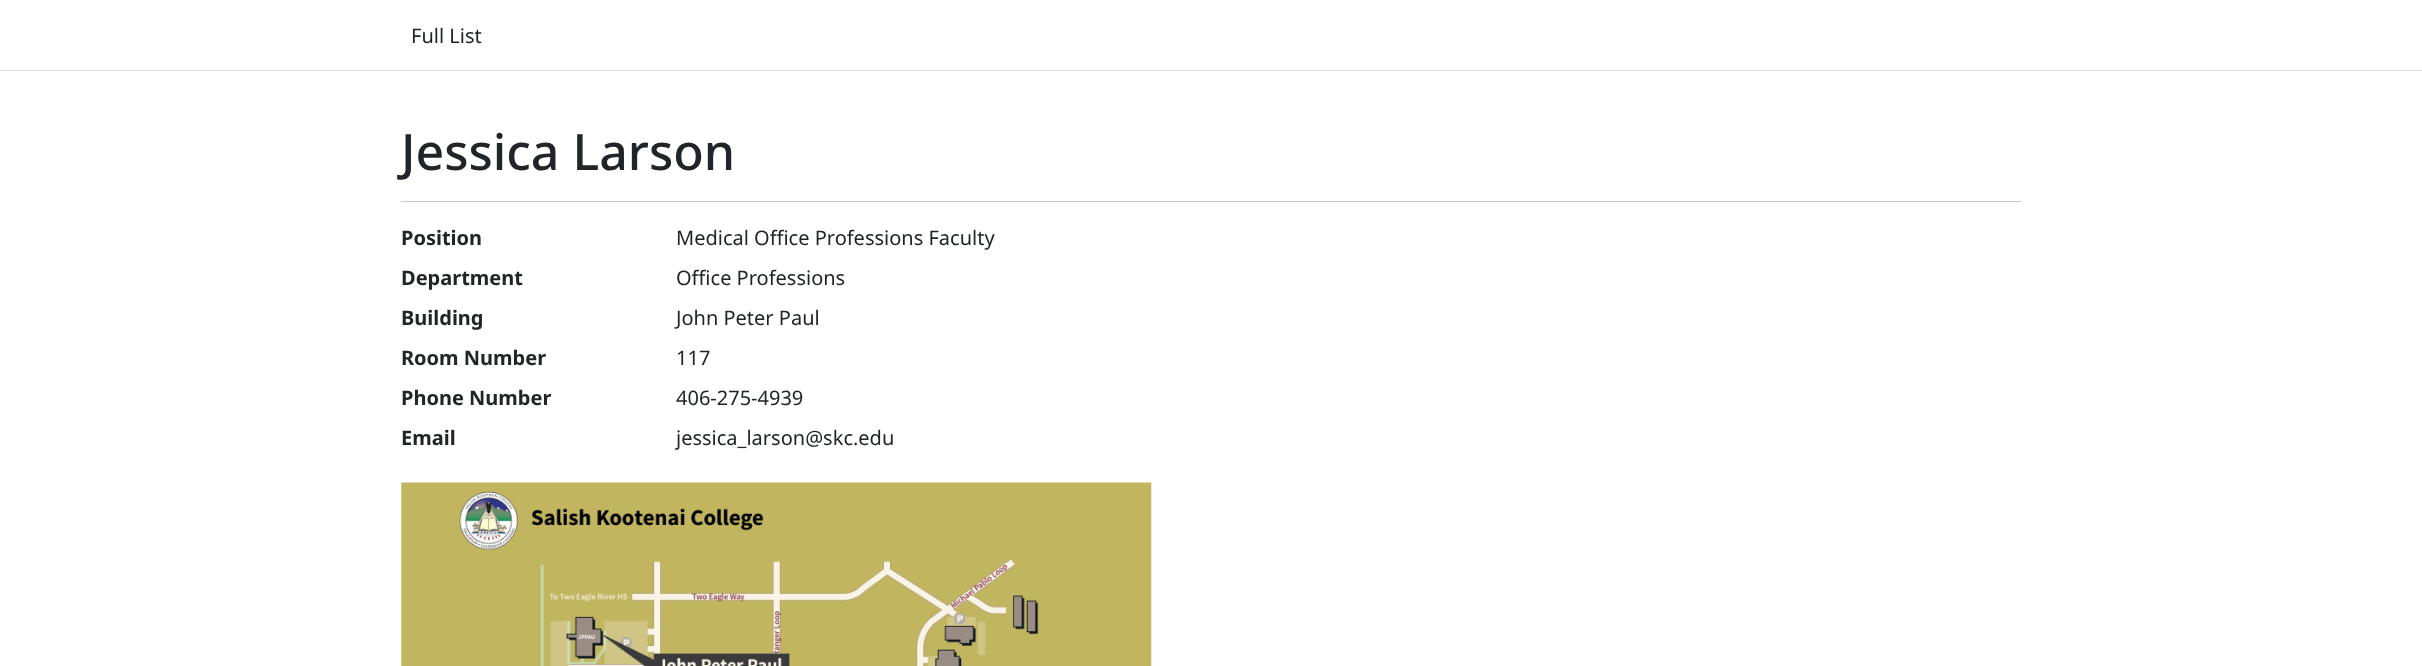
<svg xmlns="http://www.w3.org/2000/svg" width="2422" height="666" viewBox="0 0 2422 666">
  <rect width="100%" height="100%" fill="#ffffff"/>
  <rect x="0" y="70" width="2422" height="1" fill="#dee2e6"/>
  <text x="411" y="43" font-family="Noto Sans" font-size="20" fill="#212529">Full List</text>
  <text x="401" y="170" font-family="Noto Sans" font-size="50" font-weight="500" fill="#212529">Jessica Larson</text>
  <rect x="401" y="201" width="1620" height="1" fill="#c8c9ca"/>
  <text x="401" y="245" font-family="Noto Sans" font-size="20" font-weight="bold" fill="#212529">Position</text>
  <text x="676" y="245" font-family="Noto Sans" font-size="20" fill="#212529">Medical Office Professions Faculty</text>
  <text x="401" y="285" font-family="Noto Sans" font-size="20" font-weight="bold" fill="#212529">Department</text>
  <text x="676" y="285" font-family="Noto Sans" font-size="20" fill="#212529">Office Professions</text>
  <text x="401" y="325" font-family="Noto Sans" font-size="20" font-weight="bold" fill="#212529">Building</text>
  <text x="676" y="325" font-family="Noto Sans" font-size="20" fill="#212529">John Peter Paul</text>
  <text x="401" y="365" font-family="Noto Sans" font-size="20" font-weight="bold" fill="#212529">Room Number</text>
  <text x="676" y="365" font-family="Noto Sans" font-size="20" fill="#212529">117</text>
  <text x="401" y="405" font-family="Noto Sans" font-size="20" font-weight="bold" fill="#212529">Phone Number</text>
  <text x="676" y="405" font-family="Noto Sans" font-size="20" fill="#212529">406-275-4939</text>
  <text x="401" y="445" font-family="Noto Sans" font-size="20" font-weight="bold" fill="#212529">Email</text>
  <text x="676" y="445" font-family="Noto Sans" font-size="20" fill="#212529">jessica_larson@skc.edu</text>
  <image x="401" y="482" width="751" height="184" href="img1.png"/>
</svg>
